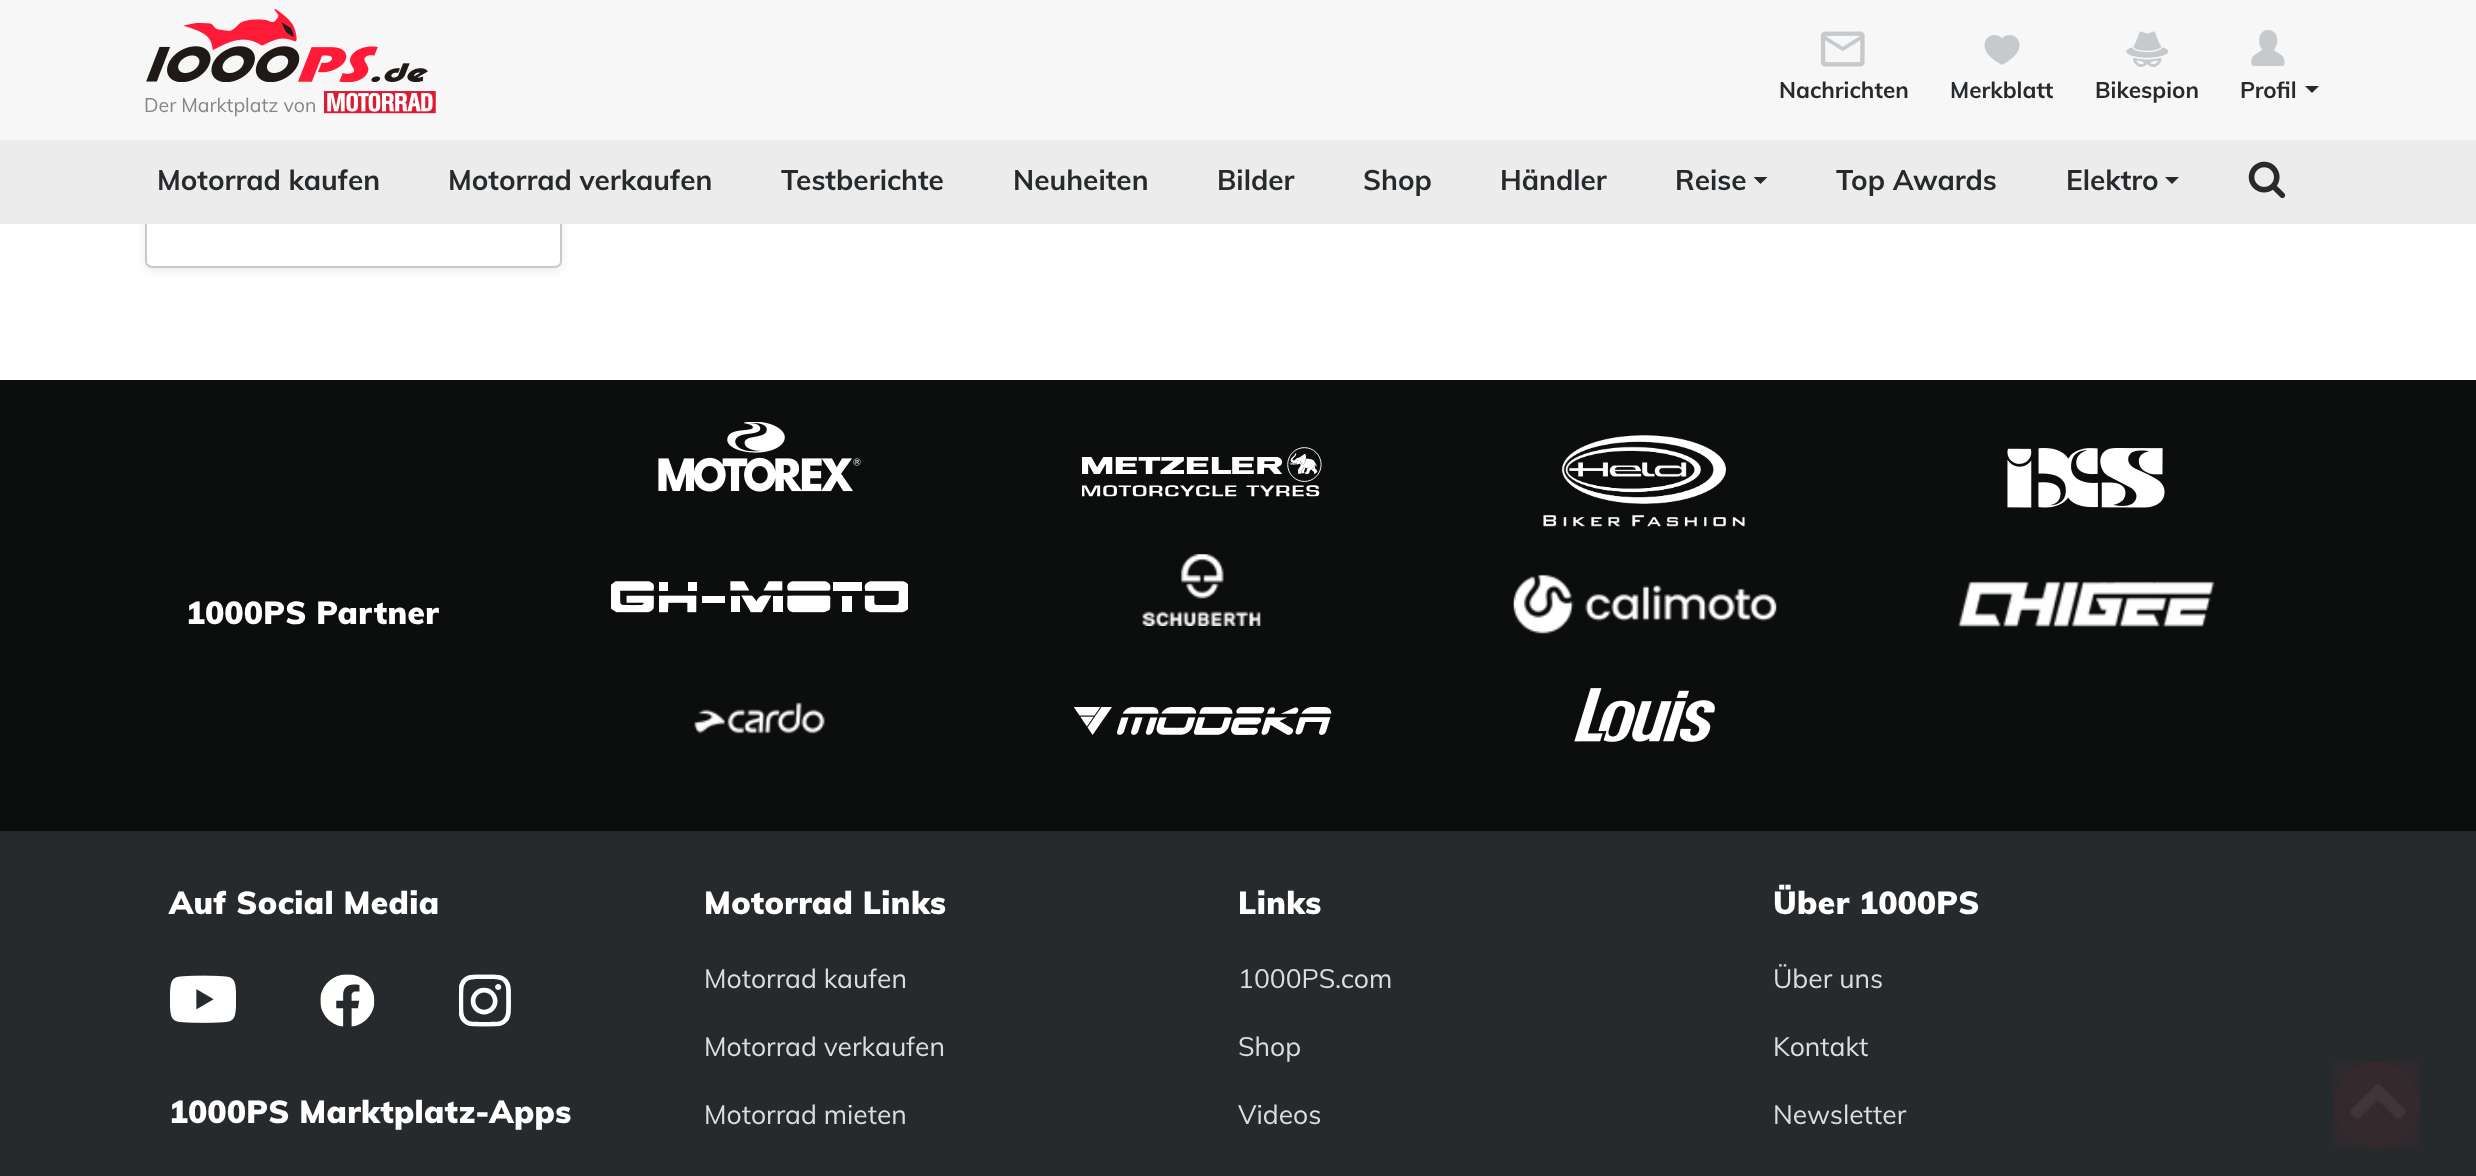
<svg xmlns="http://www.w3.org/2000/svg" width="2476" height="1176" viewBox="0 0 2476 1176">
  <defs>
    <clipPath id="clip1"><path d="M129 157H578V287H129ZM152 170H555C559 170 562 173 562 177V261C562 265 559 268 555 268H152C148 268 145 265 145 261V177C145 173 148 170 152 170Z" clip-rule="evenodd"/></clipPath>
    <filter id="blur1" x="-50%" y="-200%" width="200%" height="500%"><feGaussianBlur stdDeviation="5"/></filter>
  </defs>
  <rect width="100%" height="100%" fill="#ffffff"/>
  <rect x="0" y="0" width="2476" height="140" fill="#f7f7f7"/>
  <image x="1820" y="31" width="45" height="36" href="img1.png"/>
  <text x="1779" y="98" font-family="Muli" font-size="22.5" font-weight="bold" fill="#272a2c">Nachrichten</text>
  <image x="1984" y="35" width="36" height="30" href="img2.png"/>
  <text x="1950" y="98" font-family="Muli" font-size="22.5" font-weight="bold" fill="#272a2c">Merkblatt</text>
  <image x="2126" y="31" width="43" height="36" href="img3.png"/>
  <text x="2095" y="98" font-family="Muli" font-size="22.5" font-weight="bold" fill="#272a2c">Bikespion</text>
  <image x="2251" y="30" width="34" height="36" href="img4.png"/>
  <text x="2240" y="98" font-family="Muli" font-size="22.5" font-weight="bold" fill="#272a2c">Profil</text>
  <path d="M2305 86H2319L2312 93Z" fill="#272a2c"/>
  <image x="146" y="9" width="282" height="73" href="img5.png"/>
  <text x="144" y="112" font-family="Muli" font-size="19.5" fill="#848687">Der Marktplatz von</text>
  <image x="324" y="91" width="112" height="23" href="img6.png"/>
  <g clip-path="url(#clip1)">
    <rect x="145" y="173" width="417" height="98" rx="7" fill="#c6cacd" fill-opacity="0.4" filter="url(#blur1)"/>
  </g>
  <rect x="146" y="171" width="415" height="96" rx="6" fill="none" stroke="#c6cacd" stroke-width="2"/>
  <rect x="0" y="140" width="2476" height="84" fill="#ececec"/>
  <text x="157" y="190" font-family="Muli" font-size="28" font-weight="bold" fill="#272a2c">Motorrad kaufen</text>
  <text x="448" y="190" font-family="Muli" font-size="28" font-weight="bold" fill="#272a2c">Motorrad verkaufen</text>
  <text x="781" y="190" font-family="Muli" font-size="28" font-weight="bold" fill="#272a2c">Testberichte</text>
  <text x="1013" y="190" font-family="Muli" font-size="28" font-weight="bold" fill="#272a2c">Neuheiten</text>
  <text x="1217" y="190" font-family="Muli" font-size="28" font-weight="bold" fill="#272a2c">Bilder</text>
  <text x="1363" y="190" font-family="Muli" font-size="28" font-weight="bold" fill="#272a2c">Shop</text>
  <text x="1500" y="190" font-family="Muli" font-size="28" font-weight="bold" fill="#272a2c">Händler</text>
  <text x="1675" y="190" font-family="Muli" font-size="28" font-weight="bold" fill="#272a2c">Reise</text>
  <path d="M1753.5 177H1767.5L1760.5 184Z" fill="#272a2c"/>
  <text x="1836" y="190" font-family="Muli" font-size="28" font-weight="bold" fill="#272a2c">Top Awards</text>
  <text x="2066" y="190" font-family="Muli" font-size="28" font-weight="bold" fill="#272a2c">Elektro</text>
  <path d="M2165 177H2179L2172 184Z" fill="#272a2c"/>
  <image x="2248" y="161" width="38" height="38" href="img7.png"/>
  <rect x="0" y="831" width="2476" height="345" fill="#272a2c"/>
  <rect x="0" y="380" width="2476" height="451" fill="#0c0d0d"/>
  <text x="186" y="624" font-family="Muli" font-size="31.5" font-weight="900" letter-spacing="0.4" fill="#ffffff">1000PS Partner</text>
  <image x="658" y="422" width="203" height="70" href="img8.png"/>
  <image x="1082" y="447" width="240" height="50" href="img9.png"/>
  <image x="1543" y="435" width="202" height="92" href="img10.png"/>
  <image x="2007" y="448" width="158" height="60" href="img11.png"/>
  <image x="611" y="581" width="297" height="32" href="img12.png"/>
  <image x="1142" y="554" width="119" height="72" href="img13.png"/>
  <image x="1513" y="574" width="264" height="60" href="img14.png"/>
  <image x="1958" y="581" width="257" height="46" href="img15.png"/>
  <image x="694" y="702" width="131" height="32" href="img16.png"/>
  <image x="1073" y="707" width="259" height="28" href="img17.png"/>
  <image x="1574" y="688" width="141" height="54" href="img18.png"/>
  <text x="169" y="914" font-family="Muli" font-size="31.5" font-weight="900" letter-spacing="0.4" fill="#ffffff">Auf Social Media</text>
  <image x="170" y="975" width="66" height="48" href="img19.png"/>
  <image x="320" y="974" width="55" height="53" href="img20.png"/>
  <image x="459" y="974" width="52" height="53" href="img21.png"/>
  <text x="169" y="1123" font-family="Muli" font-size="31.5" font-weight="900" letter-spacing="0.4" fill="#ffffff">1000PS Marktplatz-Apps</text>
  <text x="704" y="914" font-family="Muli" font-size="31.5" font-weight="900" letter-spacing="0.4" fill="#ffffff">Motorrad Links</text>
  <text x="704" y="988" font-family="Muli" font-size="26.5" fill="#dddddd">Motorrad kaufen</text>
  <text x="704" y="1056" font-family="Muli" font-size="26.5" fill="#dddddd">Motorrad verkaufen</text>
  <text x="704" y="1124" font-family="Muli" font-size="26.5" fill="#dddddd">Motorrad mieten</text>
  <text x="1238" y="914" font-family="Muli" font-size="31.5" font-weight="900" letter-spacing="0.4" fill="#ffffff">Links</text>
  <text x="1238" y="988" font-family="Muli" font-size="26.5" fill="#dddddd">1000PS.com</text>
  <text x="1238" y="1056" font-family="Muli" font-size="26.5" fill="#dddddd">Shop</text>
  <text x="1238" y="1124" font-family="Muli" font-size="26.5" fill="#dddddd">Videos</text>
  <text x="1773" y="914" font-family="Muli" font-size="31.5" font-weight="900" letter-spacing="0.4" fill="#ffffff">Über 1000PS</text>
  <text x="1773" y="988" font-family="Muli" font-size="26.5" fill="#dddddd">Über uns</text>
  <text x="1773" y="1056" font-family="Muli" font-size="26.5" fill="#dddddd">Kontakt</text>
  <text x="1773" y="1124" font-family="Muli" font-size="26.5" fill="#dddddd">Newsletter</text>
  <circle cx="2376.5" cy="1104.5" r="43.5" fill="#2e2a2c"/>
  <image x="2350" y="1084" width="56" height="35" href="img22.png"/>
  <rect x="2333" y="1061" width="87" height="87" fill="#ff1b37" fill-opacity="0.03"/>
  <image x="2350" y="1084" width="56" height="35" href="img23.png"/>
</svg>
